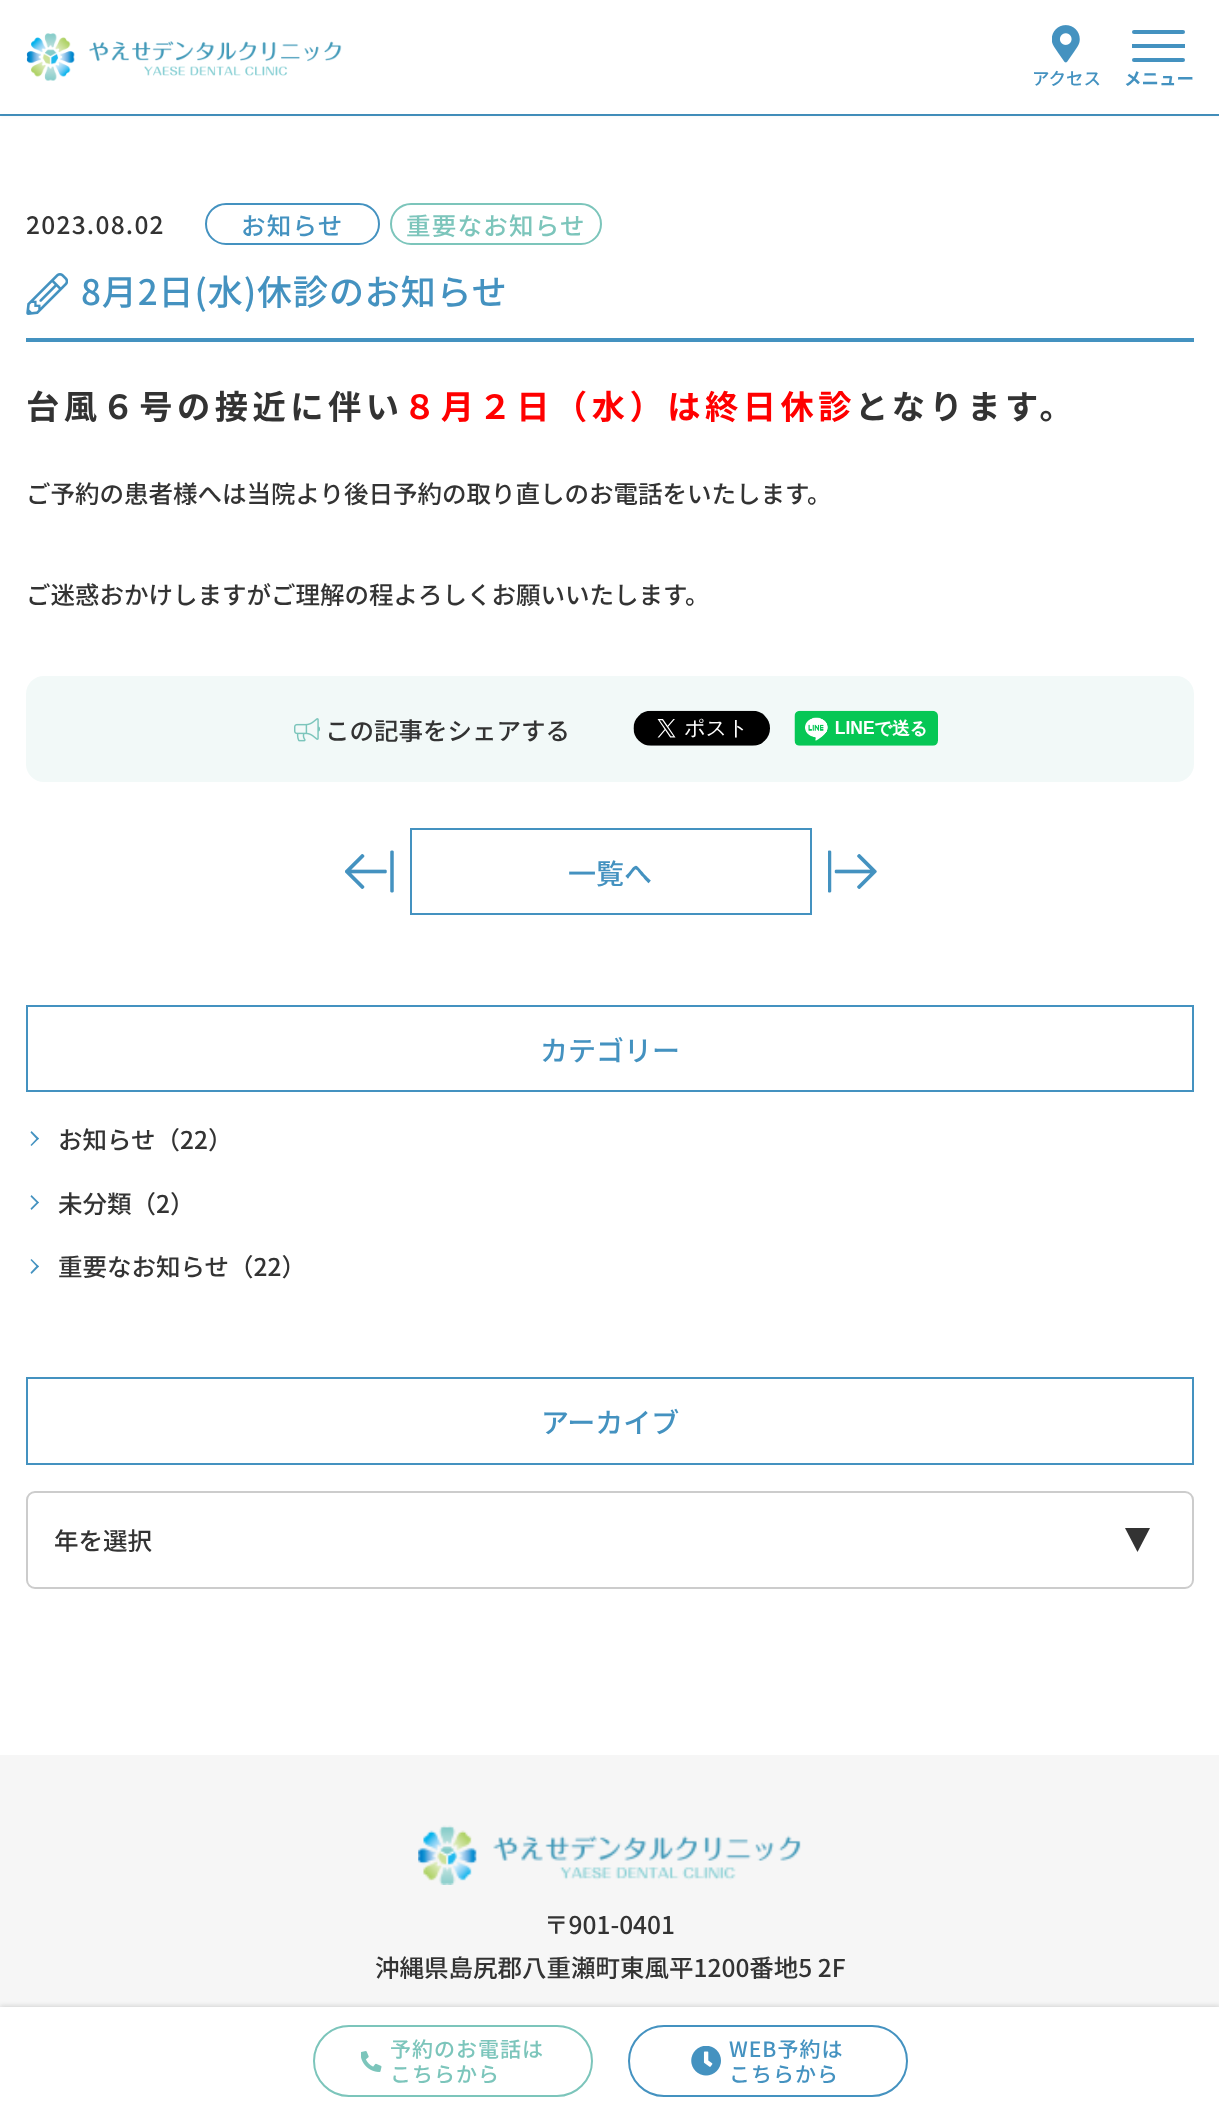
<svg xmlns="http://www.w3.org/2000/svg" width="1219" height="2114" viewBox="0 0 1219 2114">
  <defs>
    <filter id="blur1" x="-50%" y="-200%" width="200%" height="500%"><feGaussianBlur stdDeviation="2.5"/></filter>
  </defs>
  <rect width="100%" height="100%" fill="#ffffff"/>
  <rect x="0" y="114" width="1219" height="2" fill="#4492c0"/>
  <rect x="0" y="0" width="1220" height="114" fill="#000000" fill-opacity="0.1" filter="url(#blur1)"/>
  <rect x="0" y="0" width="1219" height="114" fill="#ffffff"/>
  <image x="26" y="33" width="316" height="48" href="img1.png"/>
  <image x="1052" y="25" width="28" height="38" href="img2.png"/>
  <text x="1032" y="85" font-family="Noto Sans JP" font-size="17.5" font-weight="500" fill="#4492c0">アクセス</text>
  <rect x="1132" y="44" width="53" height="4" fill="#4492c0"/>
  <rect x="1132" y="30" width="53" height="4" rx="2" fill="#4492c0"/>
  <rect x="1132" y="58" width="53" height="4" rx="2" fill="#4492c0"/>
  <text x="1124" y="85" font-family="Noto Sans JP" font-size="17.5" font-weight="bold" fill="#4492c0">メニュー</text>
  <text x="26" y="234" font-family="Noto Sans JP" font-size="24.5" font-weight="500" letter-spacing="1.25" fill="#333333">2023.08.02</text>
  <rect x="206" y="204" width="173" height="40" rx="20" fill="none" stroke="#4492c0" stroke-width="2"/>
  <text x="241" y="235" font-family="Noto Sans JP" font-size="24.5" font-weight="500" letter-spacing="1.25" fill="#4492c0">お知らせ</text>
  <rect x="391" y="204" width="210" height="40" rx="20" fill="none" stroke="#7cc5bb" stroke-width="2"/>
  <text x="406" y="235" font-family="Noto Sans JP" font-size="24.5" font-weight="500" letter-spacing="1.25" fill="#7cc5bb">重要なお知らせ</text>
  <rect x="26" y="338" width="1168" height="4" fill="#4492c0"/>
  <image x="26" y="273" width="42" height="42" href="img3.png"/>
  <text x="81" y="305" font-family="Noto Sans JP" font-size="35" font-weight="500" letter-spacing="0.9" fill="#4492c0">8月2日(水)休診のお知らせ</text>
  <text x="26" y="419" font-family="Noto Sans JP" font-size="33.25" font-weight="bold" letter-spacing="4.5" fill="#333333">台風６号の接近に伴い</text>
  <text x="403" y="419" font-family="Noto Sans JP" font-size="33.25" font-weight="bold" letter-spacing="4.5" fill="#ff0000">８月２日（水）は終日休診</text>
  <text x="855" y="419" font-family="Noto Sans JP" font-size="33.25" font-weight="bold" letter-spacing="4.5" fill="#333333">となります。</text>
  <text x="26" y="503" font-family="Noto Sans JP" font-size="24.5" font-weight="500" fill="#333333">ご予約の患者様へは当院より後日予約の取り直しのお電話をいたします。</text>
  <text x="26" y="604" font-family="Noto Sans JP" font-size="24.5" font-weight="500" fill="#333333">ご迷惑おかけしますがご理解の程よろしくお願いいたします。</text>
  <rect x="26" y="676" width="1168" height="106" rx="18" fill="#f2f9f8"/>
  <image x="294" y="718" width="26" height="24" href="img4.png"/>
  <text x="325" y="740" font-family="Noto Sans JP" font-size="24.5" font-weight="500" fill="#333333">この記事をシェアする</text>
  <image x="633" y="710" width="137" height="36" href="img5.png"/>
  <image x="794" y="710" width="144" height="36" href="img6.png"/>
  <image x="345" y="850" width="49" height="43" href="img7.png"/>
  <rect x="411" y="829" width="400" height="85" fill="none" stroke="#4492c0" stroke-width="2"/>
  <text x="568" y="884" font-family="Noto Sans JP" font-size="28" font-weight="500" fill="#4492c0">一覧へ</text>
  <image x="828" y="850" width="49" height="43" href="img8.png"/>
  <rect x="27" y="1006" width="1166" height="85" fill="none" stroke="#4492c0" stroke-width="2"/>
  <text x="540" y="1061" font-family="Noto Sans JP" font-size="28" font-weight="500" fill="#4492c0">カテゴリー</text>
  <path d="M31.5 1131L39 1138.5L37.5 1140L30.5 1132.5Z" fill="#4492c0"/>
  <path d="M37.5 1137.5L39 1138.5L31.5 1146L30.5 1145Z" fill="#4492c0"/>
  <text x="58" y="1149" font-family="Noto Sans JP" font-size="24.5" font-weight="500" fill="#333333">お知らせ（22）</text>
  <path d="M31.5 1195L39 1202.5L37.5 1203.5L30.5 1196.5Z" fill="#4492c0"/>
  <path d="M37.5 1201.5L39 1202.5L31.5 1210L30.5 1208.5Z" fill="#4492c0"/>
  <text x="58" y="1213" font-family="Noto Sans JP" font-size="24.5" font-weight="500" fill="#333333">未分類（2）</text>
  <path d="M31.5 1259L39 1266.5L37.5 1267.5L30.5 1260Z" fill="#4492c0"/>
  <path d="M37.5 1265L39 1266.5L31.5 1274L30.5 1272.5Z" fill="#4492c0"/>
  <text x="58" y="1276" font-family="Noto Sans JP" font-size="24.5" font-weight="500" fill="#333333">重要なお知らせ（22）</text>
  <rect x="27" y="1378" width="1166" height="86" fill="none" stroke="#4492c0" stroke-width="2"/>
  <text x="541" y="1433" font-family="Noto Sans JP" font-size="28" font-weight="500" fill="#4492c0">アーカイブ</text>
  <rect x="27" y="1492" width="1166" height="96" rx="8" fill="none" stroke="#cccccc" stroke-width="2"/>
  <text x="54" y="1550" font-family="Noto Sans JP" font-size="24.5" font-weight="500" fill="#333333">年を選択</text>
  <path d="M1125 1528H1150L1137.5 1552Z" fill="#333333"/>
  <rect x="0" y="1755" width="1219" height="252" fill="#f6f6f6"/>
  <image x="418" y="1825" width="383" height="60" href="img9.png"/>
  <text x="544" y="1934" font-family="Noto Sans JP" font-size="24.5" font-weight="500" fill="#333333">〒901-0401</text>
  <text x="375" y="1977" font-family="Noto Sans JP" font-size="24.5" font-weight="500" fill="#333333">沖縄県島尻郡八重瀬町東風平1200番地5 2F</text>
  <rect x="0" y="2006" width="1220" height="106" fill="#000000" fill-opacity="0.15" filter="url(#blur1)"/>
  <rect x="0" y="2007" width="1219" height="107" fill="#ffffff"/>
  <rect x="314" y="2026" width="278" height="70" rx="35" fill="none" stroke="#7cc5bb" stroke-width="2"/>
  <text x="390" y="2057" font-family="Noto Sans JP" font-size="21" font-weight="500" letter-spacing="1" fill="#7cc5bb">予約のお電話は</text>
  <image x="361" y="2051" width="21" height="21" href="img10.png"/>
  <text x="390" y="2082" font-family="Noto Sans JP" font-size="21" font-weight="500" letter-spacing="1" fill="#7cc5bb">こちらから</text>
  <rect x="629" y="2026" width="278" height="70" rx="35" fill="none" stroke="#4492c0" stroke-width="2"/>
  <image x="691" y="2046" width="30" height="30" href="img11.png"/>
  <text x="729" y="2057" font-family="Noto Sans JP" font-size="21" font-weight="500" letter-spacing="1" fill="#4492c0">WEB予約は</text>
  <text x="729" y="2082" font-family="Noto Sans JP" font-size="21" font-weight="500" letter-spacing="1" fill="#4492c0">こちらから</text>
</svg>
